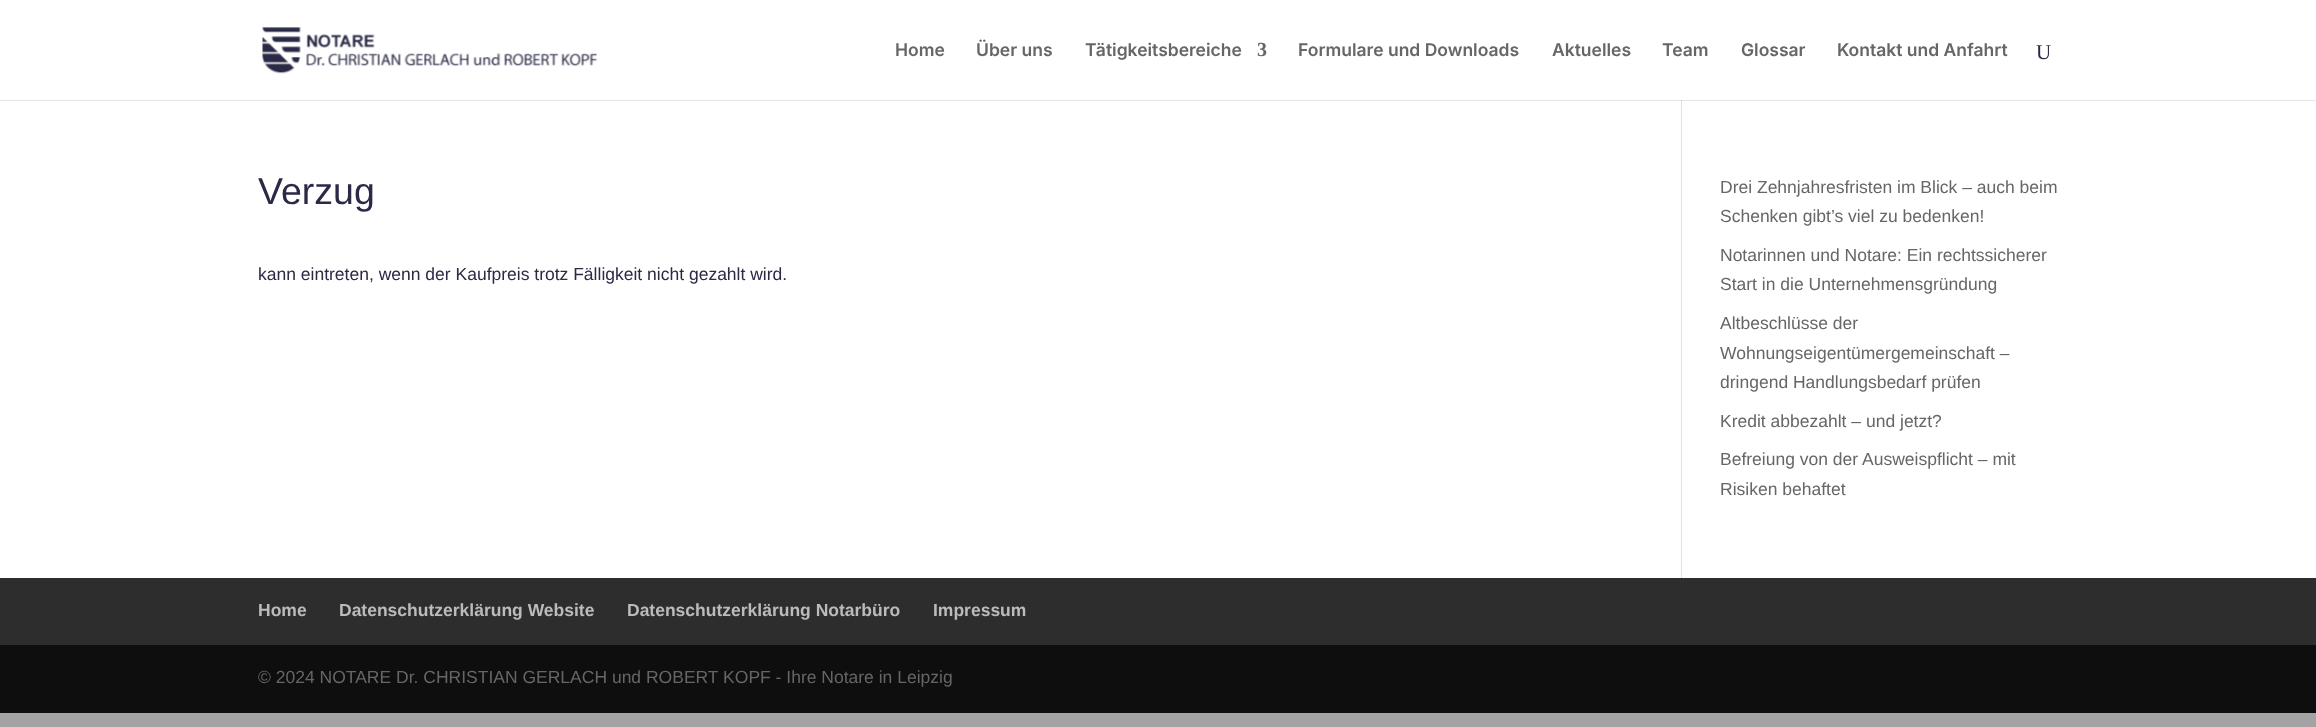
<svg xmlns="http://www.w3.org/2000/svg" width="2316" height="727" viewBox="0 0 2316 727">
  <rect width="100%" height="100%" fill="#a3a3a3"/>
  <rect x="0" y="0" width="2316" height="100" fill="#ffffff"/>
  <image x="262" y="27" width="335" height="47" href="img1.png"/>
  <text x="895" y="56" font-family="Inter" font-size="17.5" font-weight="600" fill="#666666">Home</text>
  <text x="976" y="56" font-family="Inter" font-size="17.5" font-weight="600" fill="#666666">Über uns</text>
  <text x="1085" y="56" font-family="Inter" font-size="17.5" font-weight="600" fill="#666666">Tätigkeitsbereiche</text>
  <text x="1257" y="56" font-family="Liberation Serif" font-size="20" font-weight="bold" fill="#666666">3</text>
  <text x="1298" y="56" font-family="Inter" font-size="17.5" font-weight="600" fill="#666666">Formulare und Downloads</text>
  <text x="1552" y="56" font-family="Inter" font-size="17.5" font-weight="600" fill="#666666">Aktuelles</text>
  <text x="1662" y="56" font-family="Inter" font-size="17.5" font-weight="600" fill="#666666">Team</text>
  <text x="1741" y="56" font-family="Inter" font-size="17.5" font-weight="600" fill="#666666">Glossar</text>
  <text x="1837" y="56" font-family="Inter" font-size="17.5" font-weight="600" fill="#666666">Kontakt und Anfahrt</text>
  <text x="2036" y="59" font-family="Liberation Serif" font-size="21" fill="#2a2946">U</text>
  <rect x="0" y="101" width="2316" height="477" fill="#ffffff"/>
  <rect x="0" y="100" width="2316" height="1" fill="#e6e6e6"/>
  <rect x="1681" y="100" width="1" height="478" fill="#e2e2e2"/>
  <rect x="1681" y="100" width="1" height="1" fill="#cbcbcb"/>
  <text x="258" y="204" font-family="Liberation Sans" font-size="37.5" fill="#2a2946">Verzug</text>
  <text x="258" y="280" font-family="Liberation Sans" font-size="17.5" fill="#2a2946">kann eintreten, wenn der Kaufpreis trotz Fälligkeit nicht gezahlt wird.</text>
  <text x="1720" y="193" font-family="Liberation Sans" font-size="17.5" fill="#666666">Drei Zehnjahresfristen im Blick – auch beim</text>
  <text x="1720" y="222" font-family="Liberation Sans" font-size="17.5" fill="#666666">Schenken gibt’s viel zu bedenken!</text>
  <text x="1720" y="261" font-family="Liberation Sans" font-size="17.5" fill="#666666">Notarinnen und Notare: Ein rechtssicherer</text>
  <text x="1720" y="290" font-family="Liberation Sans" font-size="17.5" fill="#666666">Start in die Unternehmensgründung</text>
  <text x="1720" y="329" font-family="Liberation Sans" font-size="17.5" fill="#666666">Altbeschlüsse der</text>
  <text x="1720" y="359" font-family="Liberation Sans" font-size="17.5" fill="#666666">Wohnungseigentümergemeinschaft –</text>
  <text x="1720" y="388" font-family="Liberation Sans" font-size="17.5" fill="#666666">dringend Handlungsbedarf prüfen</text>
  <text x="1720" y="427" font-family="Liberation Sans" font-size="17.5" fill="#666666">Kredit abbezahlt ‒ und jetzt?</text>
  <text x="1720" y="465" font-family="Liberation Sans" font-size="17.5" fill="#666666">Befreiung von der Ausweispflicht – mit</text>
  <text x="1720" y="495" font-family="Liberation Sans" font-size="17.5" fill="#666666">Risiken behaftet</text>
  <rect x="0" y="578" width="2316" height="67" fill="#2d2d2d"/>
  <text x="258" y="616" font-family="Liberation Sans" font-size="17.5" font-weight="bold" fill="#bbbbbb">Home</text>
  <text x="339" y="616" font-family="Liberation Sans" font-size="17.5" font-weight="bold" fill="#bbbbbb">Datenschutzerklärung Website</text>
  <text x="627" y="616" font-family="Liberation Sans" font-size="17.5" font-weight="bold" fill="#bbbbbb">Datenschutzerklärung Notarbüro</text>
  <text x="933" y="616" font-family="Liberation Sans" font-size="17.5" font-weight="bold" fill="#bbbbbb">Impressum</text>
  <rect x="0" y="645" width="2316" height="68" fill="#0e0e0e"/>
  <text x="258" y="683" font-family="Liberation Sans" font-size="17.5" fill="#666666">© 2024 NOTARE Dr. CHRISTIAN GERLACH und ROBERT KOPF - Ihre Notare in Leipzig</text>
</svg>
